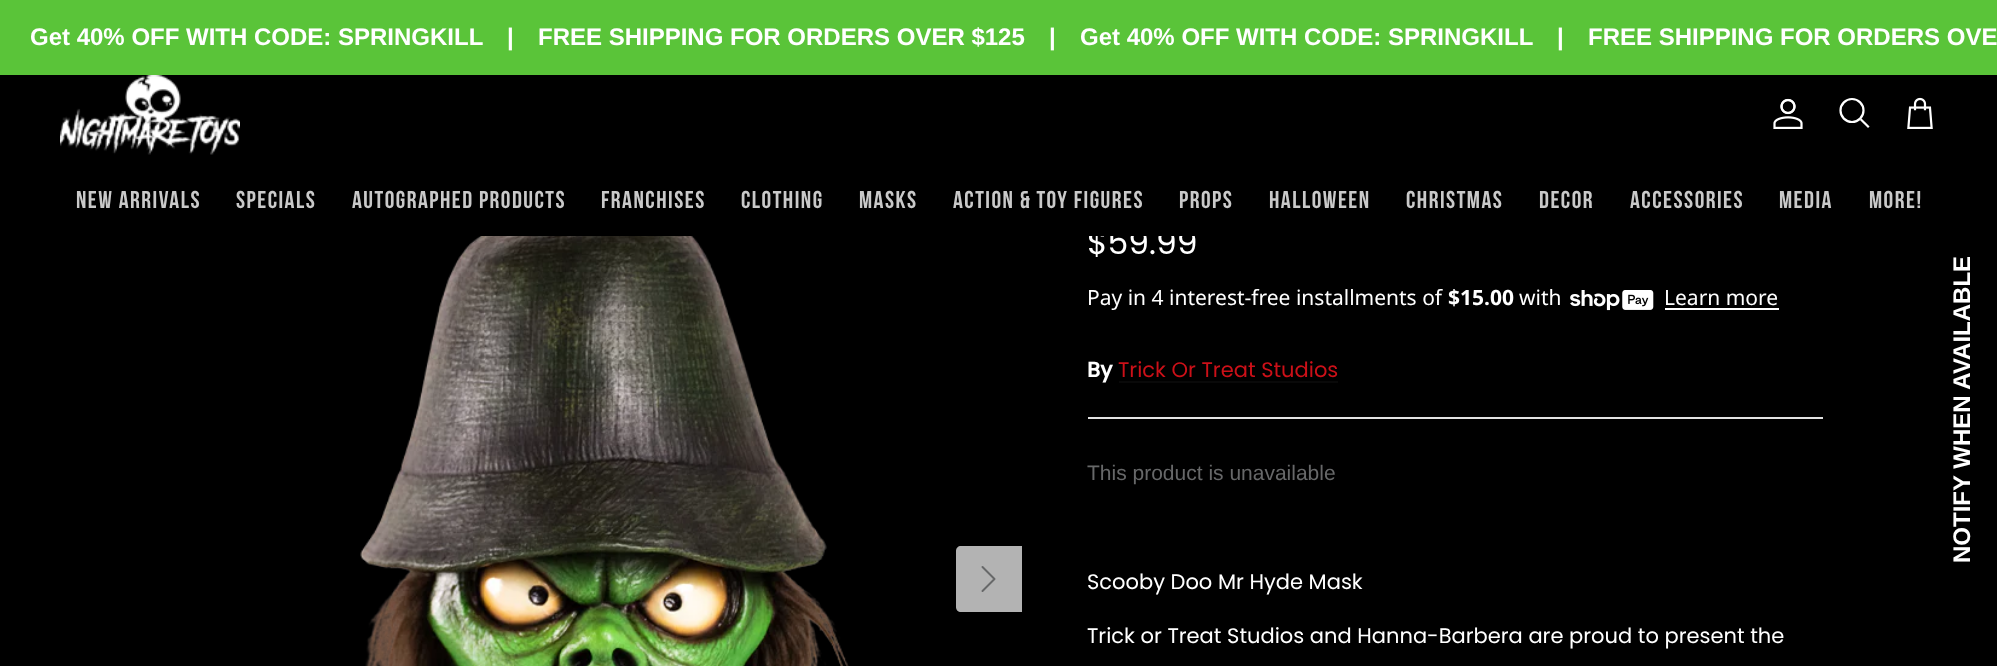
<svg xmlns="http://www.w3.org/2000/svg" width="1997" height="666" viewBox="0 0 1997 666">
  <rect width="100%" height="100%" fill="#000000"/>
  <rect x="0" y="0" width="1997" height="75" fill="#5ac439"/>
  <text x="30" y="45" font-family="Arimo" font-size="24" font-weight="bold" fill="#ffffff">Get 40% OFF WITH CODE: SPRINGKILL</text>
  <text x="507" y="45" font-family="Arimo" font-size="24" font-weight="bold" fill="#ffffff">|</text>
  <text x="538" y="45" font-family="Arimo" font-size="24" font-weight="bold" fill="#ffffff">FREE SHIPPING FOR ORDERS OVER $125</text>
  <text x="1049" y="45" font-family="Arimo" font-size="24" font-weight="bold" fill="#ffffff">|</text>
  <text x="1080" y="45" font-family="Arimo" font-size="24" font-weight="bold" fill="#ffffff">Get 40% OFF WITH CODE: SPRINGKILL</text>
  <text x="1557" y="45" font-family="Arimo" font-size="24" font-weight="bold" fill="#ffffff">|</text>
  <text x="1588" y="45" font-family="Arimo" font-size="24" font-weight="bold" fill="#ffffff">FREE SHIPPING FOR ORDERS OVE</text>
  <image x="60" y="75" width="180" height="80" href="img1.png"/>
  <image x="1773" y="98" width="30" height="31" href="img2.png"/>
  <circle cx="1852" cy="110.5" r="11.5" fill="none" stroke="#ffffff" stroke-width="2.2"/>
  <path d="M1861.5 120L1868 126.5" fill="none" stroke="#ffffff" stroke-width="2.2" stroke-linecap="square"/>
  <image x="1907" y="97" width="26" height="32" href="img3.png"/>
  <text x="1087" y="254" font-family="Poppins" font-size="33" fill="#ffffff">$59.99</text>
  <rect x="1089" y="228" width="106" height="8" fill="#000000"/>
  <text x="76" y="208" font-family="Bebas Neue" font-size="24.25" letter-spacing="1.5" fill="#c9c9c9">New Arrivals</text>
  <text x="236" y="208" font-family="Bebas Neue" font-size="24.25" letter-spacing="1.5" fill="#c9c9c9">Specials</text>
  <text x="352" y="208" font-family="Bebas Neue" font-size="24.25" letter-spacing="1.5" fill="#c9c9c9">Autographed Products</text>
  <text x="601" y="208" font-family="Bebas Neue" font-size="24.25" letter-spacing="1.5" fill="#c9c9c9">Franchises</text>
  <text x="741" y="208" font-family="Bebas Neue" font-size="24.25" letter-spacing="1.5" fill="#c9c9c9">Clothing</text>
  <text x="859" y="208" font-family="Bebas Neue" font-size="24.25" letter-spacing="1.5" fill="#c9c9c9">Masks</text>
  <text x="953" y="208" font-family="Bebas Neue" font-size="24.25" letter-spacing="1.5" fill="#c9c9c9">Action &amp; Toy Figures</text>
  <text x="1179" y="208" font-family="Bebas Neue" font-size="24.25" letter-spacing="1.5" fill="#c9c9c9">Props</text>
  <text x="1269" y="208" font-family="Bebas Neue" font-size="24.25" letter-spacing="1.5" fill="#c9c9c9">Halloween</text>
  <text x="1406" y="208" font-family="Bebas Neue" font-size="24.25" letter-spacing="1.5" fill="#c9c9c9">Christmas</text>
  <text x="1539" y="208" font-family="Bebas Neue" font-size="24.25" letter-spacing="1.5" fill="#c9c9c9">Decor</text>
  <text x="1630" y="208" font-family="Bebas Neue" font-size="24.25" letter-spacing="1.5" fill="#c9c9c9">Accessories</text>
  <text x="1779" y="208" font-family="Bebas Neue" font-size="24.25" letter-spacing="1.5" fill="#c9c9c9">Media</text>
  <text x="1869" y="208" font-family="Bebas Neue" font-size="24.25" letter-spacing="1.5" fill="#c9c9c9">More!</text>
  <image x="360" y="236" width="489" height="430" href="img4.png"/>
  <path d="M961 546H1022V612H961C958 612 956 610 956 607V551C956 548 958 546 961 546Z" fill="#b3b3b3"/>
  <path d="M982.5 591L994.5 579L982.5 567" fill="none" stroke="#676869" stroke-width="2" stroke-linecap="round" stroke-linejoin="round"/>
  <text x="1087" y="305" font-family="Noto Sans" font-size="21" fill="#ffffff">Pay in 4 interest-free installments of</text>
  <text x="1448" y="305" font-family="Noto Sans" font-size="21" font-weight="bold" fill="#ffffff">$15.00</text>
  <text x="1519" y="305" font-family="Noto Sans" font-size="21" fill="#ffffff">with</text>
  <image x="1570" y="290" width="84" height="21" href="img5.png"/>
  <text x="1664" y="305" font-family="Noto Sans" font-size="21" fill="#ffffff">Learn more</text>
  <rect x="1665" y="308" width="114" height="2" fill="#ffffff"/>
  <text x="1087" y="377" font-family="Poppins" font-size="21" font-weight="bold" fill="#ffffff">By</text>
  <text x="1118" y="377" font-family="Poppins" font-size="21" fill="#cc1018">Trick Or Treat Studios</text>
  <rect x="1119" y="381" width="219" height="2" fill="#090909"/>
  <rect x="1088" y="417" width="735" height="2" fill="#e2e2e2"/>
  <text x="1087" y="480" font-family="Arimo" font-size="21" fill="#676869">This product is unavailable</text>
  <text x="1087" y="589" font-family="Poppins" font-size="21" fill="#ffffff">Scooby Doo Mr Hyde Mask</text>
  <text x="1087" y="643" font-family="Poppins" font-size="21" fill="#ffffff">Trick or Treat Studios and Hanna-Barbera are proud to present the</text>
  <text x="1970" y="563" transform="rotate(-90 1970 563)" font-family="Liberation Sans" font-size="24" font-weight="bold" fill="#ffffff">NOTIFY WHEN AVAILABLE</text>
</svg>
